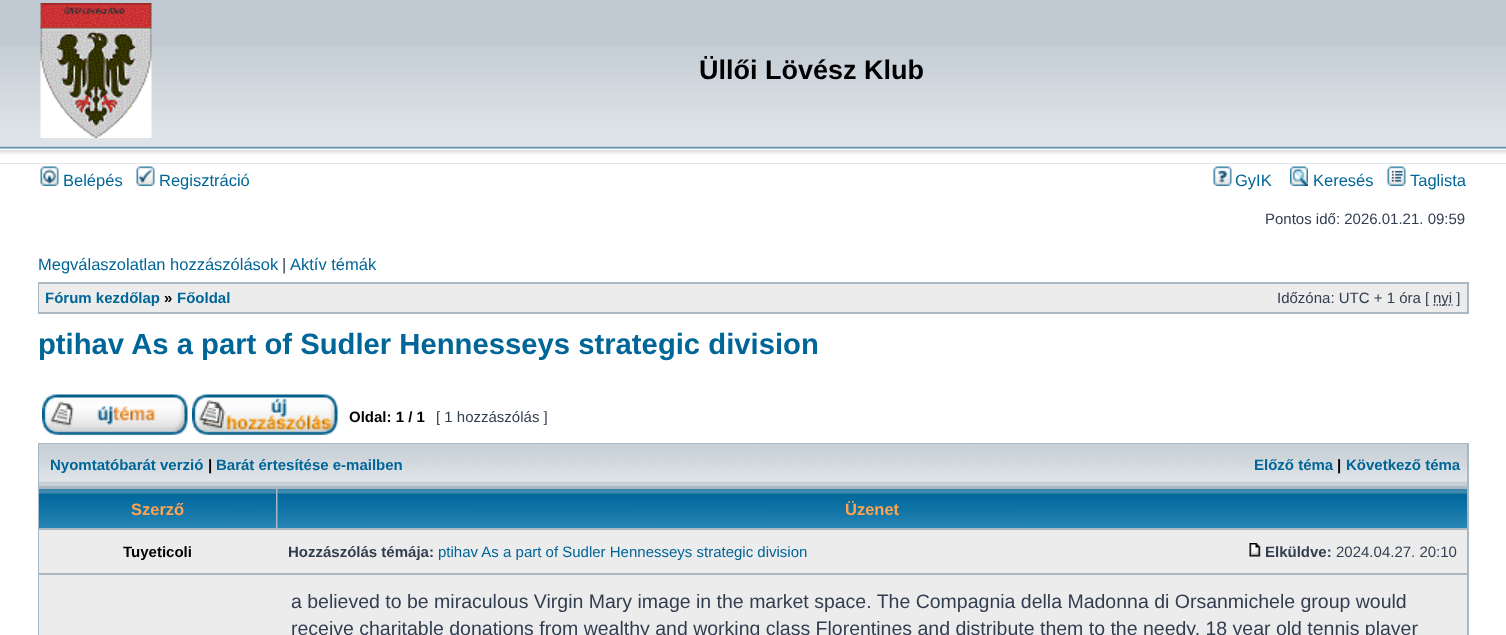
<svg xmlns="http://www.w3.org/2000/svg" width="1506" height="635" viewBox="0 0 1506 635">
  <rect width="100%" height="100%" fill="#ffffff"/>
  <rect x="0" y="0" width="1506" height="164" fill="#c1cad2"/>
  <image x="0" y="46" width="1506" height="118" href="img1.png"/>
  <image x="40" y="3" width="112" height="135" href="img2.png"/>
  <text x="699" y="79" font-family="Liberation Sans" font-size="27" font-weight="bold" fill="#000000">Üllői Lövész Klub</text>
  <image x="40" y="166" width="19" height="20" href="img3.png"/>
  <text x="63" y="186" font-family="Liberation Sans" font-size="16.5" fill="#006597">Belépés</text>
  <image x="136" y="166" width="19" height="20" href="img4.png"/>
  <text x="159" y="186" font-family="Liberation Sans" font-size="16.5" fill="#006597">Regisztráció</text>
  <image x="1213" y="166" width="19" height="20" href="img5.png"/>
  <text x="1235" y="186" font-family="Liberation Sans" font-size="16.5" fill="#006597">GyIK</text>
  <image x="1290" y="166" width="18" height="20" href="img6.png"/>
  <text x="1313" y="186" font-family="Liberation Sans" font-size="16.5" fill="#006597">Keresés</text>
  <image x="1387" y="166" width="19" height="20" href="img7.png"/>
  <text x="1410" y="186" font-family="Liberation Sans" font-size="16.5" fill="#006597">Taglista</text>
  <text x="1265" y="224" font-family="Liberation Sans" font-size="15" fill="#323d4f">Pontos idő: 2026.01.21. 09:59</text>
  <text x="38" y="270" font-family="Liberation Sans" font-size="16.5" fill="#006597">Megválaszolatlan hozzászólások</text>
  <text x="282" y="270" font-family="Liberation Sans" font-size="16.5" fill="#323d4f">|</text>
  <text x="290" y="270" font-family="Liberation Sans" font-size="16.5" fill="#006597">Aktív témák</text>
  <rect x="38" y="282" width="1431" height="32" fill="#a9b8c2"/>
  <rect x="39" y="284" width="1428" height="28" fill="#ececec"/>
  <text x="45" y="303" font-family="Liberation Sans" font-size="15" font-weight="bold" fill="#006597">Fórum kezdőlap</text>
  <text x="164" y="303" font-family="Liberation Sans" font-size="15" font-weight="bold" fill="#000000">»</text>
  <text x="177" y="303" font-family="Liberation Sans" font-size="15" font-weight="bold" fill="#006597">Főoldal</text>
  <text x="1277" y="303" font-family="Liberation Sans" font-size="15" fill="#323d4f">Időzóna: UTC + 1 óra [</text>
  <path d="M1433.5 305H1452.5" fill="none" stroke="#323d4f" stroke-width="1.5" stroke-dasharray="1.5 1.5"/>
  <text x="1433" y="303" font-family="Liberation Sans" font-size="15" fill="#323d4f">nyi ]</text>
  <text x="38" y="354" font-family="Liberation Sans" font-size="29.25" font-weight="bold" fill="#006597">ptihav As a part of Sudler Hennesseys strategic division</text>
  <image x="42" y="394" width="146" height="41" href="img8.png"/>
  <image x="192" y="394" width="146" height="41" href="img9.png"/>
  <text x="349" y="422" font-family="Liberation Sans" font-size="15" font-weight="bold" fill="#000000">Oldal: 1 / 1</text>
  <text x="436" y="422" font-family="Liberation Sans" font-size="15" fill="#323d4f">[ 1 hozzászólás ]</text>
  <rect x="38" y="443" width="1431" height="192" fill="#a9b8c2"/>
  <rect x="39" y="482" width="1428" height="4" fill="#c7d0d7"/>
  <image x="39" y="444" width="1428" height="38" href="img10.png"/>
  <text x="50" y="470" font-family="Liberation Sans" font-size="15" font-weight="bold" fill="#006597">Nyomtatóbarát verzió</text>
  <text x="208" y="470" font-family="Liberation Sans" font-size="15" font-weight="bold" fill="#000000">|</text>
  <text x="216" y="470" font-family="Liberation Sans" font-size="15" font-weight="bold" fill="#006597">Barát értesítése e-mailben</text>
  <text x="1254" y="470" font-family="Liberation Sans" font-size="15" font-weight="bold" fill="#006597">Előző téma</text>
  <text x="1337" y="470" font-family="Liberation Sans" font-size="15" font-weight="bold" fill="#000000">|</text>
  <text x="1346" y="470" font-family="Liberation Sans" font-size="15" font-weight="bold" fill="#006597">Következő téma</text>
  <image x="39" y="489" width="237" height="39" href="img11.png"/>
  <text x="131" y="515" font-family="Liberation Sans" font-size="16.5" font-weight="bold" fill="#ffa34f">Szerző</text>
  <image x="277" y="489" width="1190" height="39" href="img12.png"/>
  <text x="845" y="515" font-family="Liberation Sans" font-size="16.5" font-weight="bold" fill="#ffa34f">Üzenet</text>
  <rect x="39" y="530" width="1428" height="43" fill="#ececec"/>
  <text x="123" y="557" font-family="Liberation Sans" font-size="15" font-weight="bold" fill="#000000">Tuyeticoli</text>
  <text x="288" y="557" font-family="Liberation Sans" font-size="15" font-weight="bold" fill="#323d4f">Hozzászólás témája:</text>
  <text x="438" y="557" font-family="Liberation Sans" font-size="15" fill="#006597">ptihav As a part of Sudler Hennesseys strategic division</text>
  <image x="1249" y="543" width="12" height="14" href="img13.png"/>
  <text x="1265" y="557" font-family="Liberation Sans" font-size="15" font-weight="bold" fill="#323d4f">Elküldve:</text>
  <text x="1336" y="557" font-family="Liberation Sans" font-size="15" fill="#323d4f">2024.04.27. 20:10</text>
  <rect x="39" y="575" width="1428" height="60" fill="#ececec"/>
  <text x="291" y="608" font-family="Liberation Sans" font-size="19.5" fill="#323d4f">a believed to be miraculous Virgin Mary image in the market space. The Compagnia della Madonna di Orsanmichele group would</text>
  <text x="291" y="635" font-family="Liberation Sans" font-size="19.5" fill="#323d4f">receive charitable donations from wealthy and working class Florentines and distribute them to the needy. 18 year old tennis player</text>
</svg>
